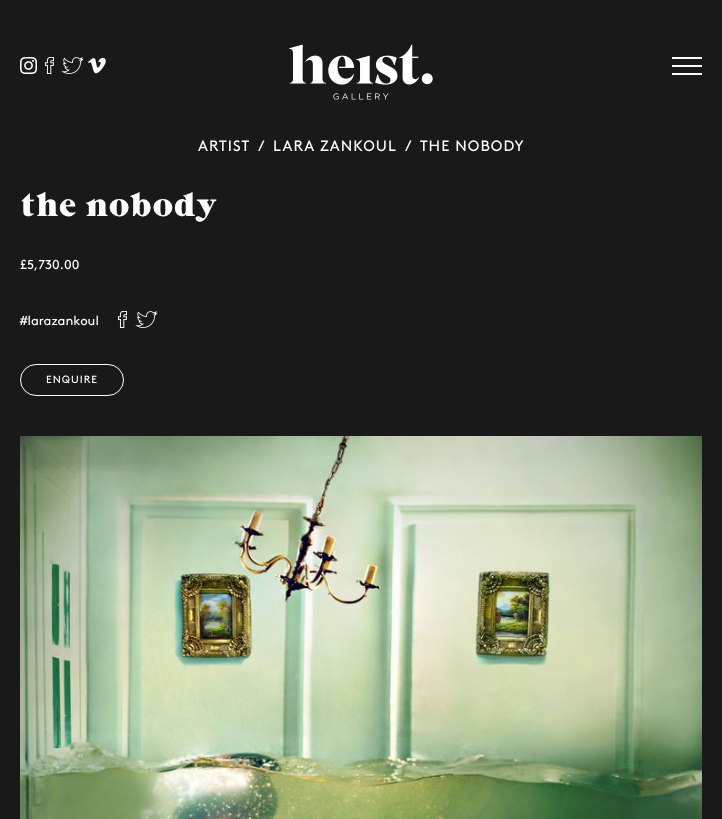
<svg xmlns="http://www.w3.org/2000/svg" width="722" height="819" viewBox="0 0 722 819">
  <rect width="100%" height="100%" fill="#191919"/>
  <image x="20" y="57" width="17" height="17" href="img1.png"/>
  <image x="44" y="57" width="10" height="17" href="img2.png"/>
  <image x="61" y="57" width="23" height="17" href="img3.png"/>
  <image x="88" y="57" width="18" height="17" href="img4.png"/>
  <image x="289" y="44" width="144" height="56" href="img5.png"/>
  <rect x="672" y="57" width="30" height="2" fill="#ffffff"/>
  <rect x="672" y="65" width="30" height="2" fill="#ffffff"/>
  <rect x="672" y="73" width="30" height="2" fill="#ffffff"/>
  <text x="198" y="151" font-family="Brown" font-size="15" letter-spacing="1" fill="#ffffff">ARTIST</text>
  <text x="258" y="151" font-family="Brown" font-size="15" letter-spacing="1" fill="#ffffff">/</text>
  <text x="273" y="151" font-family="Brown" font-size="15" letter-spacing="1" fill="#ffffff">LARA ZANKOUL</text>
  <text x="405" y="151" font-family="Brown" font-size="15" letter-spacing="1" fill="#ffffff" xml:space="preserve">/  THE NOBODY</text>
  <text x="20" y="216" font-family="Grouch" font-size="30" font-weight="100" fill="#ffffff">the nobody</text>
  <text x="20" y="269" font-family="Brown" font-size="13" fill="#ffffff">£5,730.00</text>
  <text x="20" y="325" font-family="Brown" font-size="13" fill="#ffffff">#larazankoul</text>
  <image x="117" y="311" width="10" height="17" href="img2.png"/>
  <image x="135" y="311" width="23" height="17" href="img3.png"/>
  <rect x="20.5" y="364.5" width="103" height="31" rx="15.5" fill="none" stroke="#ffffff"/>
  <text x="46" y="383" font-family="Brown" font-size="10.5" letter-spacing="1" fill="#ffffff">ENQUIRE</text>
  <image x="20" y="436" width="682" height="383" href="img6.png"/>
</svg>
